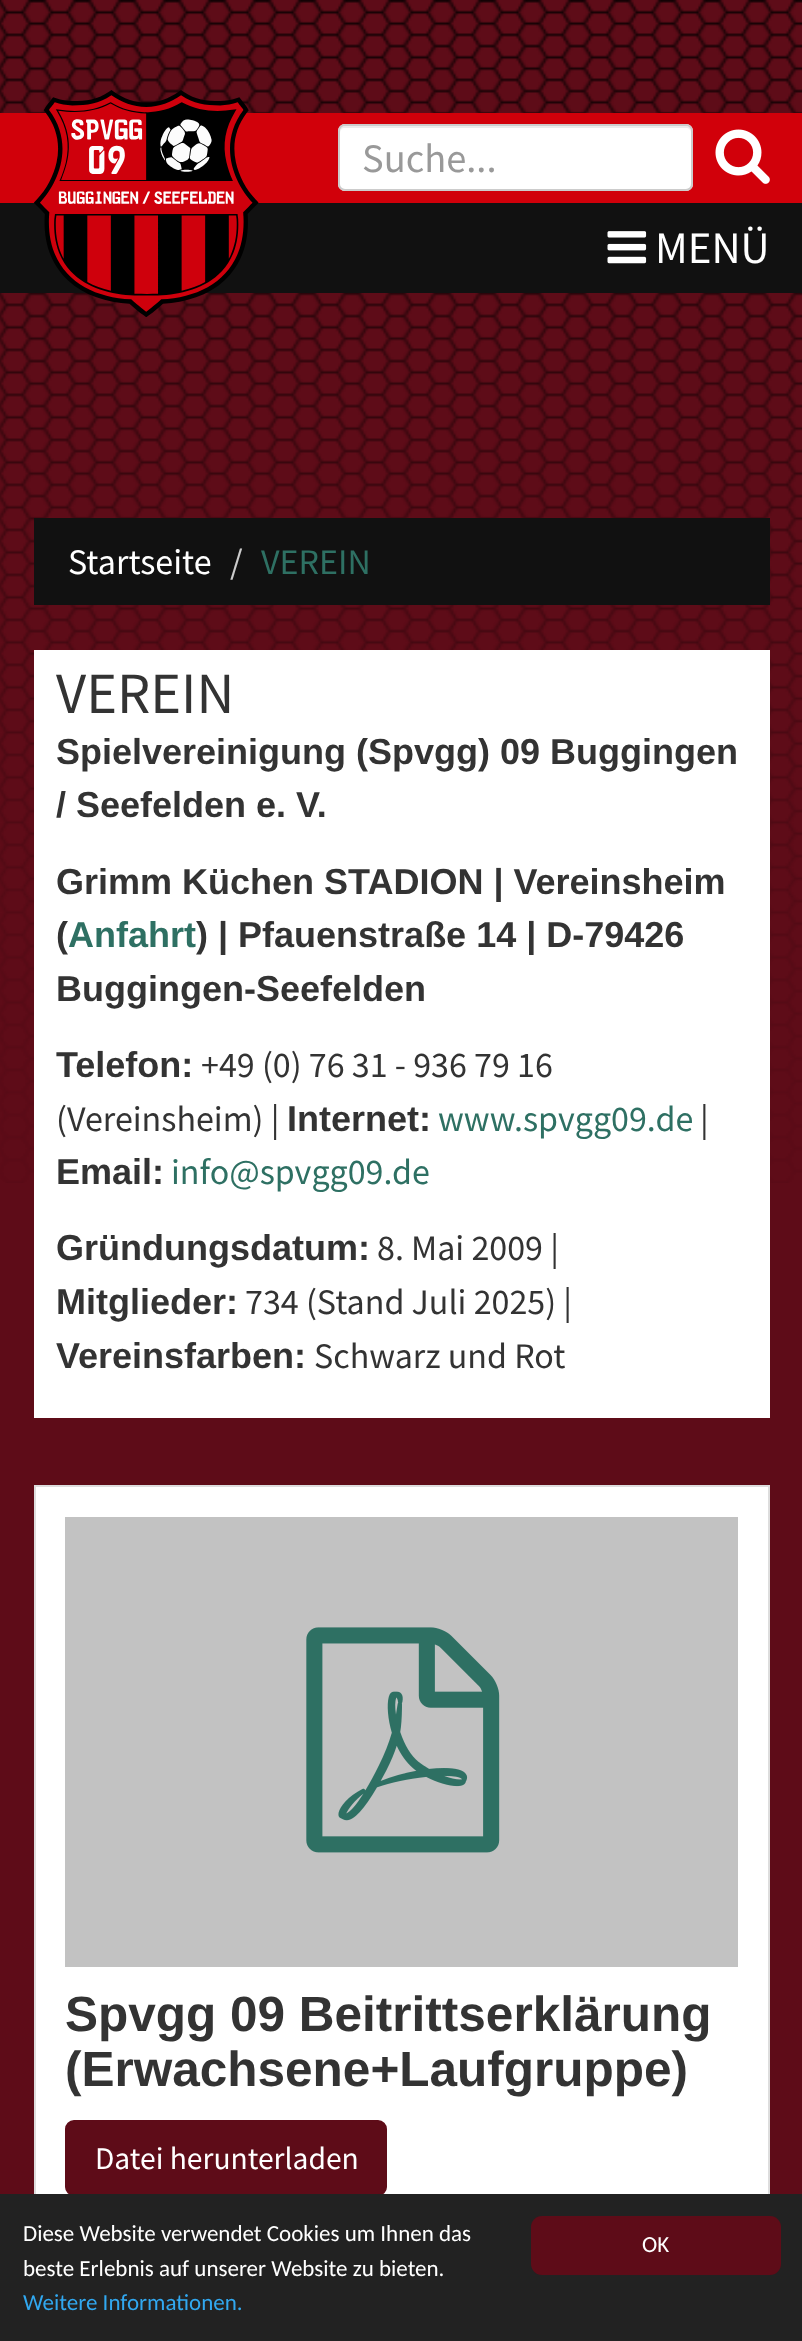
<svg xmlns="http://www.w3.org/2000/svg" width="802" height="2341" viewBox="0 0 802 2341">
  <rect width="100%" height="100%" fill="#5e0c18"/>
  <image x="0" y="0" width="802" height="1183" href="img1.png"/>
  <rect x="0" y="113" width="802" height="90" fill="#d1000a"/>
  <rect x="0" y="203" width="802" height="90" fill="#111111"/>
  <image x="34" y="90" width="225" height="227" href="img2.png"/>
  <rect x="338" y="124" width="355" height="67" rx="7" fill="#ffffff"/>
  <path d="M344 128H686C689 128 691 130 691 133C691 130 690 126 686 126H345C341 126 340 130 340 133C340 130 342 128 344 128Z" fill="#ececec"/>
  <rect x="339" y="125" width="353" height="65" rx="6" fill="none" stroke="#cccccc" stroke-width="2"/>
  <text x="362" y="172" font-family="Source Sans Pro" font-size="40.5" fill="#999999">Suche...</text>
  <image x="715" y="129" width="55" height="55" href="img3.png"/>
  <image x="607" y="231" width="40" height="33" href="img4.png"/>
  <text x="655" y="263" font-family="Source Sans Pro" font-size="45" fill="#ffffff">MENÜ</text>
  <rect x="34" y="518" width="736" height="87" fill="#111111"/>
  <text x="68" y="574" font-family="Source Sans Pro" font-size="36" fill="#ffffff">Startseite</text>
  <text x="230" y="574" font-family="Source Sans Pro" font-size="36" fill="#cccccc">/</text>
  <text x="261" y="574" font-family="Source Sans Pro" font-size="36" fill="#2e7063">VEREIN</text>
  <rect x="34" y="650" width="736" height="768" fill="#ffffff"/>
  <text x="56" y="713" font-family="Source Sans Pro" font-size="58.5" fill="#333333">VEREIN</text>
  <text x="56" y="764" font-family="Liberation Sans" font-size="36" font-weight="bold" fill="#333333">Spielvereinigung (Spvgg) 09 Buggingen</text>
  <text x="56" y="817" font-family="Liberation Sans" font-size="36" font-weight="bold" fill="#333333">/ Seefelden e. V.</text>
  <text x="56" y="894" font-family="Liberation Sans" font-size="36" font-weight="bold" fill="#333333">Grimm Küchen STADION | Vereinsheim</text>
  <text x="56" y="947" font-family="Liberation Sans" font-size="36" font-weight="bold" fill="#333333">(</text>
  <text x="68" y="947" font-family="Liberation Sans" font-size="36" font-weight="bold" fill="#2e7063">Anfahrt</text>
  <text x="196" y="947" font-family="Liberation Sans" font-size="36" font-weight="bold" fill="#333333">) | Pfauenstraße 14 | D-79426</text>
  <text x="56" y="1001" font-family="Liberation Sans" font-size="36" font-weight="bold" fill="#333333">Buggingen-Seefelden</text>
  <text x="56" y="1077" font-family="Liberation Sans" font-size="36" font-weight="bold" fill="#333333">Telefon:</text>
  <text x="201" y="1077" font-family="Source Sans Pro" font-size="36" fill="#333333">+49 (0) 76 31 - 936 79 16</text>
  <text x="56" y="1131" font-family="Source Sans Pro" font-size="36" fill="#333333">(Vereinsheim) |</text>
  <text x="287" y="1131" font-family="Liberation Sans" font-size="36" font-weight="bold" fill="#333333">Internet:</text>
  <text x="438" y="1131" font-family="Source Sans Pro" font-size="36" fill="#2e7063">www.spvgg09.de</text>
  <text x="700" y="1131" font-family="Source Sans Pro" font-size="36" fill="#333333">|</text>
  <text x="56" y="1184" font-family="Liberation Sans" font-size="36" font-weight="bold" fill="#333333">Email:</text>
  <text x="171" y="1184" font-family="Source Sans Pro" font-size="36" fill="#2e7063">info@spvgg09.de</text>
  <text x="56" y="1260" font-family="Liberation Sans" font-size="36" font-weight="bold" fill="#333333">Gründungsdatum:</text>
  <text x="377" y="1260" font-family="Source Sans Pro" font-size="36" fill="#333333">8. Mai 2009 |</text>
  <text x="56" y="1314" font-family="Liberation Sans" font-size="36" font-weight="bold" fill="#333333">Mitglieder:</text>
  <text x="245" y="1314" font-family="Source Sans Pro" font-size="36" fill="#333333">734 (Stand Juli 2025) |</text>
  <text x="56" y="1368" font-family="Liberation Sans" font-size="36" font-weight="bold" fill="#333333">Vereinsfarben:</text>
  <text x="314" y="1368" font-family="Source Sans Pro" font-size="36" fill="#333333">Schwarz und Rot</text>
  <rect x="36" y="1487" width="732" height="707" fill="#ffffff"/>
  <rect x="35" y="1486" width="734" height="741" fill="none" stroke="#dddddd" stroke-width="2"/>
  <rect x="65" y="1517" width="673" height="450" fill="#c2c2c2"/>
  <image x="306" y="1627" width="194" height="226" href="img5.png"/>
  <text x="65" y="2031" font-family="Liberation Sans" font-size="49.5" font-weight="bold" fill="#333333">Spvgg 09 Beitrittserklärung</text>
  <text x="65" y="2086" font-family="Liberation Sans" font-size="49.5" font-weight="bold" fill="#333333">(Erwachsene+Laufgruppe)</text>
  <rect x="66" y="2121" width="320" height="74" rx="8" fill="#5e0c18" stroke="#5e0c18" stroke-width="2"/>
  <text x="95" y="2169" font-family="Source Sans Pro" font-size="31.5" fill="#ffffff">Datei herunterladen</text>
  <rect x="0" y="2194" width="802" height="147" fill="#222222"/>
  <text x="23" y="2241" font-family="Carlito" font-size="23" fill="#ffffff">Diese Website verwendet Cookies um Ihnen das</text>
  <text x="23" y="2276" font-family="Carlito" font-size="23" fill="#ffffff">beste Erlebnis auf unserer Website zu bieten.</text>
  <text x="23" y="2310" font-family="Carlito" font-size="23" fill="#31a8f0">Weitere Informationen.</text>
  <rect x="531" y="2216" width="250" height="59" rx="11" fill="#5e0c18"/>
  <text x="642" y="2252" font-family="Carlito" font-size="23" fill="#ffffff">OK</text>
</svg>
